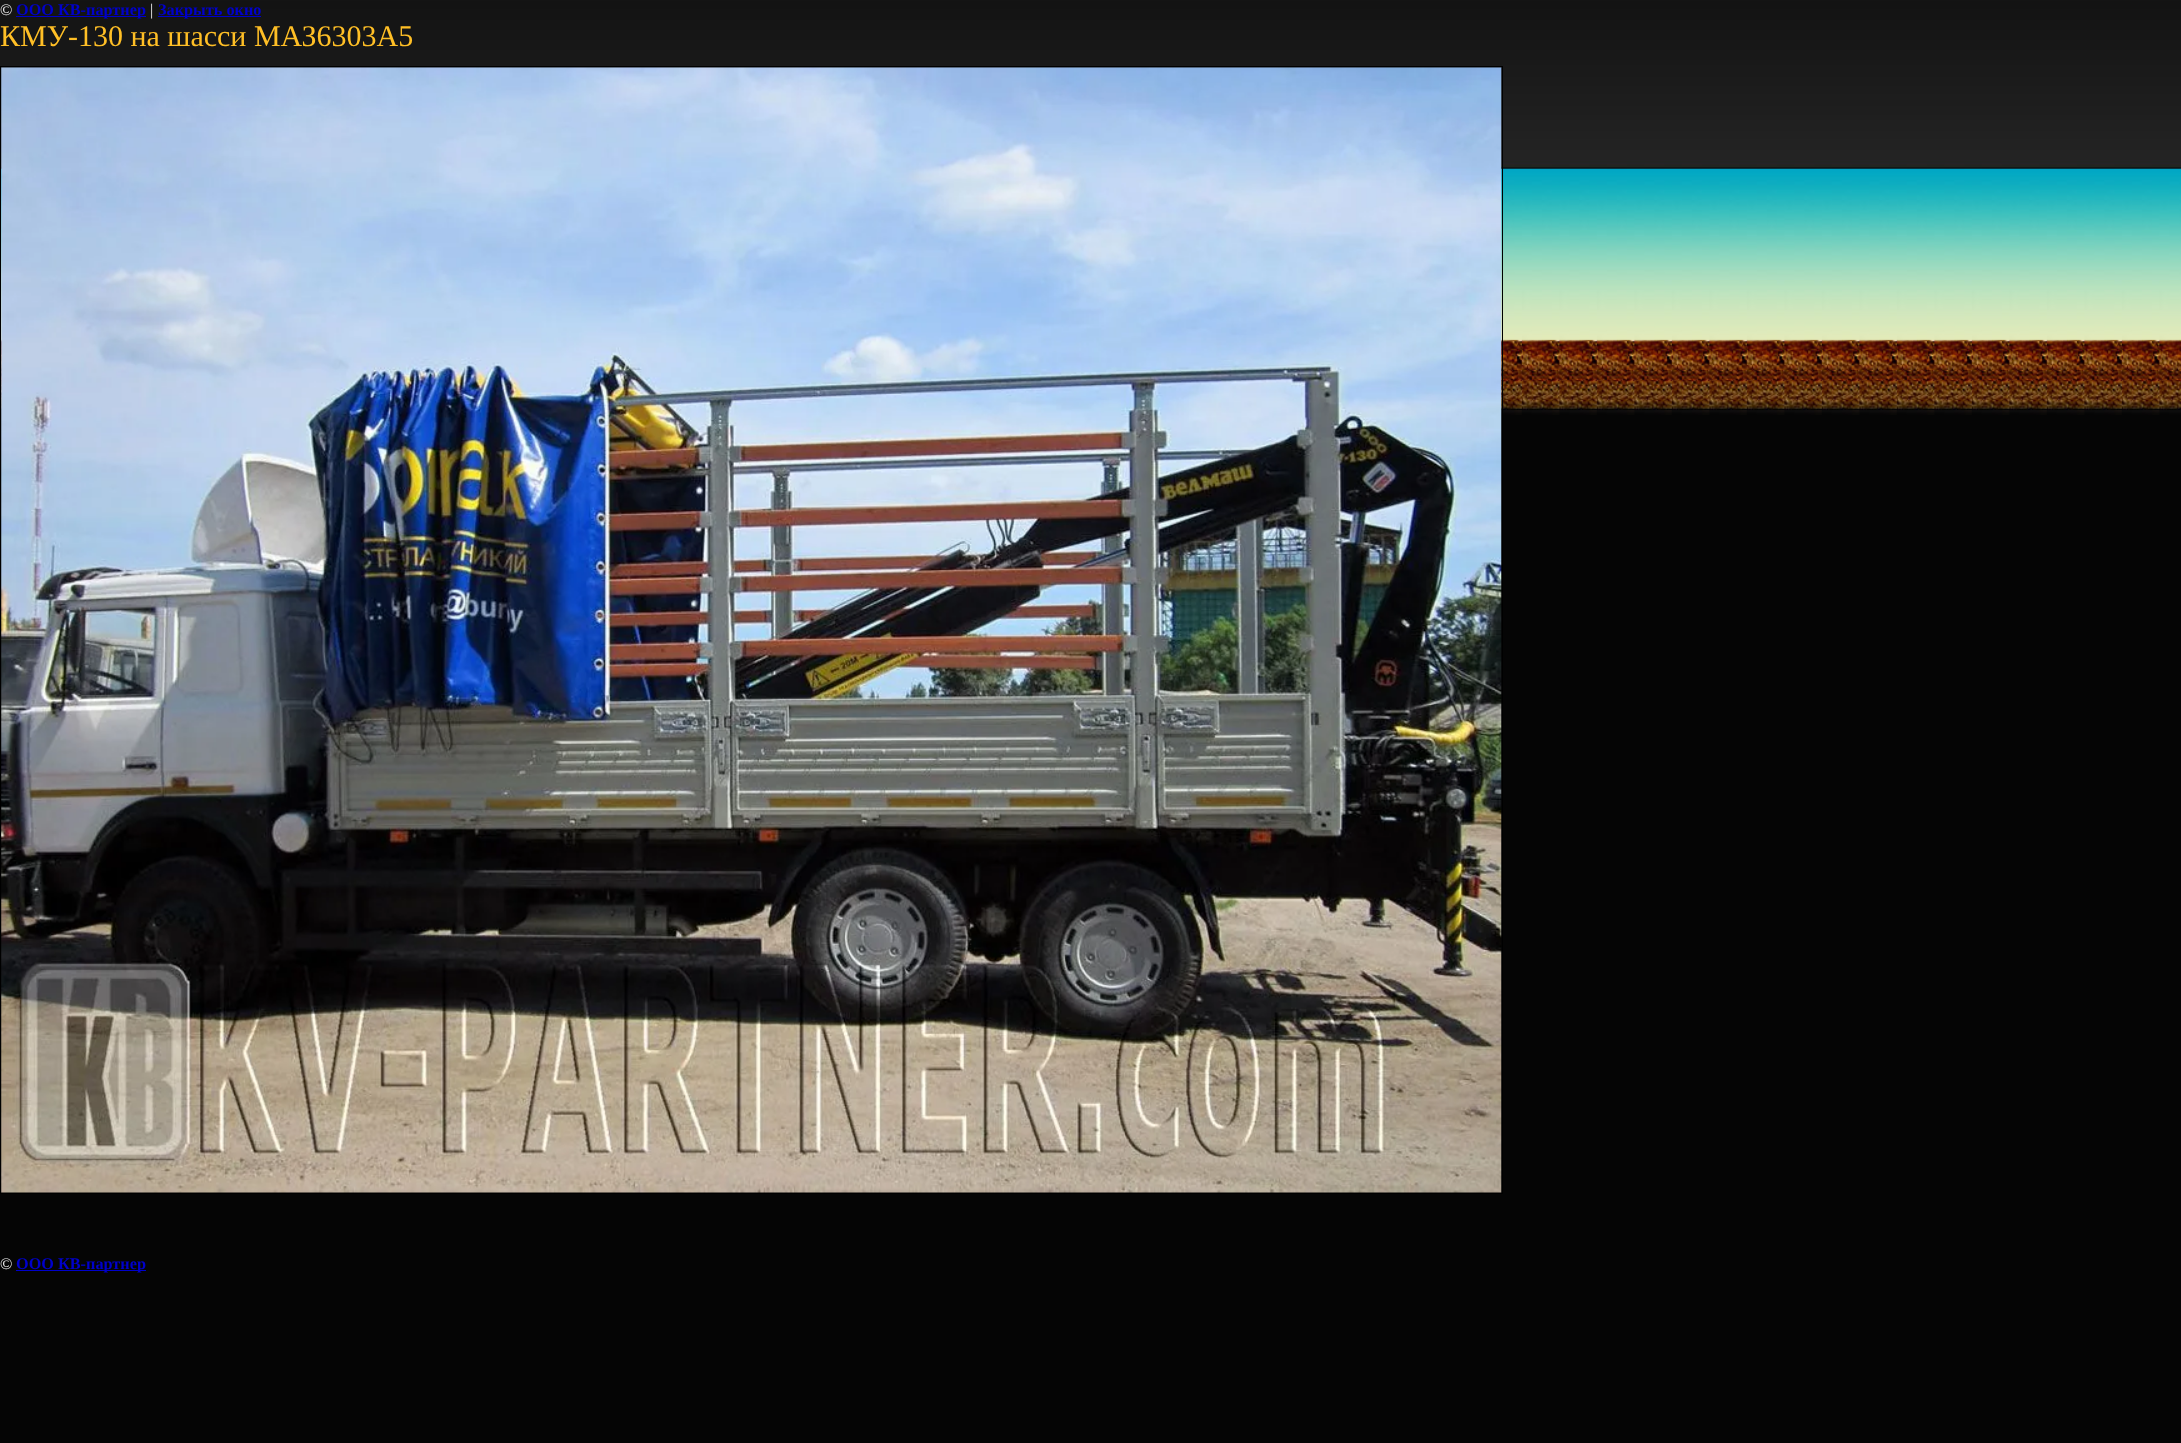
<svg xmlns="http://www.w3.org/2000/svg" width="2181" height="1443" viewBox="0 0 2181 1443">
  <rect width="100%" height="100%" fill="#050505"/>
  <image x="0" y="0" width="2181" height="415" href="img1.png"/>
  <text x="0" y="15" font-family="Liberation Serif" font-size="16.25" fill="#efefef">©</text>
  <rect x="16" y="16" width="130" height="1" fill="#0000cc"/>
  <text x="16" y="15" font-family="Liberation Serif" font-size="16.25" font-weight="bold" fill="#0000cc">ООО КВ-партнер</text>
  <text x="150" y="15" font-family="Liberation Serif" font-size="16.25" fill="#efefef">|</text>
  <rect x="158" y="16" width="103" height="1" fill="#0000cc"/>
  <text x="158" y="15" font-family="Liberation Serif" font-size="16.25" font-weight="bold" fill="#0000cc">Закрыть окно</text>
  <text x="0" y="46" font-family="Liberation Serif" font-size="30" fill="#ffbf26">КМУ-130 на шасси МАЗ6303А5</text>
  <rect x="0.5" y="66.5" width="1502" height="1127" fill="none" stroke="#000000"/>
  <image x="1" y="67" width="1501" height="1126" href="img2.png"/>
  <text x="0" y="1269" font-family="Liberation Serif" font-size="16.25" fill="#efefef">©</text>
  <rect x="16" y="1270" width="130" height="1" fill="#0000cc"/>
  <text x="16" y="1269" font-family="Liberation Serif" font-size="16.25" font-weight="bold" fill="#0000cc">ООО КВ-партнер</text>
</svg>
